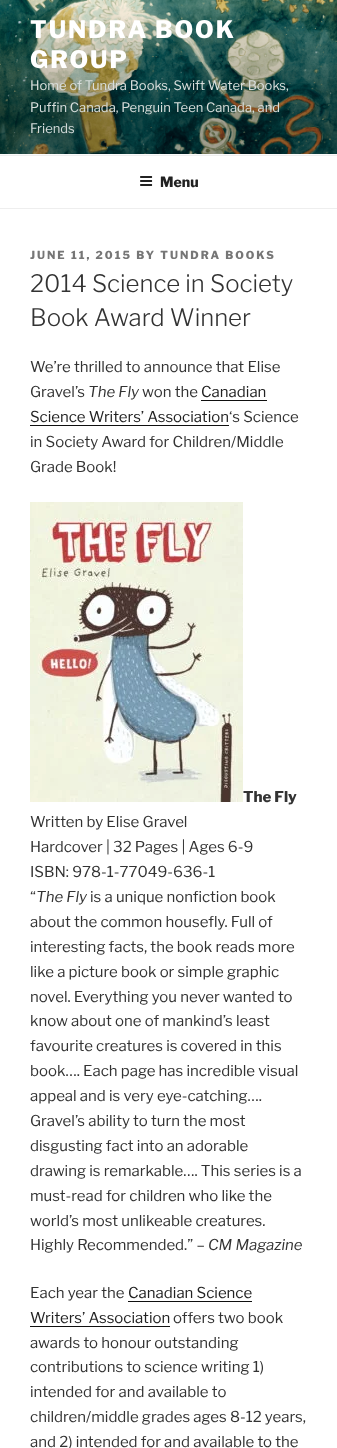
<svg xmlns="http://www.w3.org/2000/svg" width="337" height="1448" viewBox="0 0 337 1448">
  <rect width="100%" height="100%" fill="#ffffff"/>
  <rect x="0" y="154" width="337" height="1" fill="#fafafa"/>
  <image x="0" y="0" width="337" height="154" href="img1.png"/>
  <text x="30" y="38" font-family="Libre Franklin" font-size="24" font-weight="100" letter-spacing="2" fill="#ffffff">TUNDRA BOOK</text>
  <text x="30" y="68" font-family="Libre Franklin" font-size="24" font-weight="100" letter-spacing="2" fill="#ffffff">GROUP</text>
  <text x="30" y="90" font-family="'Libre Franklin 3'" font-size="13" font-weight="100" fill="#d8dedc">Home of Tundra Books, Swift Water Books,</text>
  <text x="30" y="112" font-family="'Libre Franklin 3'" font-size="13" font-weight="100" fill="#d8dedc">Puffin Canada, Penguin Teen Canada, and</text>
  <text x="30" y="133" font-family="'Libre Franklin 3'" font-size="13" font-weight="100" fill="#d1d9d8">Friends</text>
  <rect x="0" y="155" width="337" height="1" fill="#eeeeee"/>
  <rect x="0" y="208" width="337" height="1" fill="#eeeeee"/>
  <image x="140" y="176" width="13" height="10" href="img2.png"/>
  <text x="160" y="187" font-family="Libre Franklin" font-size="14" font-weight="100" fill="#222222">Menu</text>
  <text x="30" y="259" font-family="Libre Franklin" font-size="11" font-weight="100" letter-spacing="2" fill="#767676">JUNE 11, 2015 BY TUNDRA BOOKS</text>
  <text x="30" y="292" font-family="'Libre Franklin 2'" font-size="24" font-weight="100" fill="#333333">2014 Science in Society</text>
  <text x="30" y="326" font-family="'Libre Franklin 2'" font-size="24" font-weight="100" fill="#333333">Book Award Winner</text>
  <text x="30" y="372" font-family="'Libre Franklin 3'" font-size="15" font-weight="100" fill="#333333">We’re thrilled to announce that Elise</text>
  <text x="30" y="397" font-family="'Libre Franklin 3'" font-size="15" font-weight="100" fill="#333333">Gravel’s</text>
  <text x="88" y="397" font-family="Libre Franklin" font-size="15" font-weight="100" font-style="italic" fill="#333333">The Fly</text>
  <text x="142" y="397" font-family="'Libre Franklin 3'" font-size="15" font-weight="100" fill="#333333">won the</text>
  <text x="201" y="397" font-family="'Libre Franklin 3'" font-size="15" font-weight="100" fill="#222222">Canadian</text>
  <rect x="201" y="400" width="66" height="1" fill="#0f0f0f"/>
  <text x="30" y="422" font-family="'Libre Franklin 3'" font-size="15" font-weight="100" fill="#222222">Science Writers’ Association</text>
  <rect x="30" y="425" width="199" height="1" fill="#0f0f0f"/>
  <text x="229" y="422" font-family="'Libre Franklin 3'" font-size="15" font-weight="100" fill="#333333">‘s Science</text>
  <text x="30" y="447" font-family="'Libre Franklin 3'" font-size="15" font-weight="100" fill="#333333">in Society Award for Children/Middle</text>
  <text x="30" y="472" font-family="'Libre Franklin 3'" font-size="15" font-weight="100" fill="#333333">Grade Book!</text>
  <image x="30" y="502" width="213" height="300" href="img3.png"/>
  <text x="243" y="802" font-family="Libre Franklin" font-size="15" font-weight="100" fill="#333333">The Fly</text>
  <text x="30" y="827" font-family="'Libre Franklin 3'" font-size="15" font-weight="100" fill="#333333">Written by Elise Gravel</text>
  <text x="30" y="852" font-family="'Libre Franklin 3'" font-size="15" font-weight="100" fill="#333333">Hardcover | 32 Pages | Ages 6-9</text>
  <text x="30" y="877" font-family="'Libre Franklin 3'" font-size="15" font-weight="100" fill="#333333">ISBN: 978-1-77049-636-1</text>
  <text x="30" y="902" font-family="'Libre Franklin 3'" font-size="15" font-weight="100" fill="#333333">“</text>
  <text x="36" y="902" font-family="Libre Franklin" font-size="15" font-weight="100" font-style="italic" fill="#333333">The Fly</text>
  <text x="90" y="902" font-family="'Libre Franklin 3'" font-size="15" font-weight="100" fill="#333333">is a unique nonfiction book</text>
  <text x="30" y="927" font-family="'Libre Franklin 3'" font-size="15" font-weight="100" fill="#333333">about the common housefly. Full of</text>
  <text x="30" y="952" font-family="'Libre Franklin 3'" font-size="15" font-weight="100" fill="#333333">interesting facts, the book reads more</text>
  <text x="30" y="977" font-family="'Libre Franklin 3'" font-size="15" font-weight="100" fill="#333333">like a picture book or simple graphic</text>
  <text x="30" y="1002" font-family="'Libre Franklin 3'" font-size="15" font-weight="100" fill="#333333">novel. Everything you never wanted to</text>
  <text x="30" y="1026" font-family="'Libre Franklin 3'" font-size="15" font-weight="100" fill="#333333">know about one of mankind’s least</text>
  <text x="30" y="1051" font-family="'Libre Franklin 3'" font-size="15" font-weight="100" fill="#333333">favourite creatures is covered in this</text>
  <text x="30" y="1076" font-family="'Libre Franklin 3'" font-size="15" font-weight="100" fill="#333333">book…. Each page has incredible visual</text>
  <text x="30" y="1101" font-family="'Libre Franklin 3'" font-size="15" font-weight="100" fill="#333333">appeal and is very eye-catching….</text>
  <text x="30" y="1126" font-family="'Libre Franklin 3'" font-size="15" font-weight="100" fill="#333333">Gravel’s ability to turn the most</text>
  <text x="30" y="1151" font-family="'Libre Franklin 3'" font-size="15" font-weight="100" fill="#333333">disgusting fact into an adorable</text>
  <text x="30" y="1176" font-family="'Libre Franklin 3'" font-size="15" font-weight="100" fill="#333333">drawing is remarkable…. This series is a</text>
  <text x="30" y="1201" font-family="'Libre Franklin 3'" font-size="15" font-weight="100" fill="#333333">must-read for children who like the</text>
  <text x="30" y="1226" font-family="'Libre Franklin 3'" font-size="15" font-weight="100" fill="#333333">world’s most unlikeable creatures.</text>
  <text x="30" y="1250" font-family="'Libre Franklin 3'" font-size="15" font-weight="100" fill="#333333">Highly Recommended.” –</text>
  <text x="208" y="1250" font-family="Libre Franklin" font-size="15" font-weight="100" font-style="italic" fill="#333333">CM Magazine</text>
  <text x="30" y="1298" font-family="'Libre Franklin 3'" font-size="15" font-weight="100" fill="#333333">Each year the</text>
  <text x="128" y="1298" font-family="'Libre Franklin 3'" font-size="15" font-weight="100" fill="#222222">Canadian Science</text>
  <rect x="128" y="1301" width="124" height="1" fill="#0f0f0f"/>
  <text x="30" y="1323" font-family="'Libre Franklin 3'" font-size="15" font-weight="100" fill="#222222">Writers’ Association</text>
  <rect x="30" y="1326" width="140" height="1" fill="#0f0f0f"/>
  <text x="173" y="1323" font-family="'Libre Franklin 3'" font-size="15" font-weight="100" fill="#333333">offers two book</text>
  <text x="30" y="1348" font-family="'Libre Franklin 3'" font-size="15" font-weight="100" fill="#333333">awards to honour outstanding</text>
  <text x="30" y="1372" font-family="'Libre Franklin 3'" font-size="15" font-weight="100" fill="#333333">contributions to science writing 1)</text>
  <text x="30" y="1397" font-family="'Libre Franklin 3'" font-size="15" font-weight="100" fill="#333333">intended for and available to</text>
  <text x="30" y="1422" font-family="'Libre Franklin 3'" font-size="15" font-weight="100" fill="#333333">children/middle grades ages 8-12 years,</text>
  <text x="30" y="1447" font-family="'Libre Franklin 3'" font-size="15" font-weight="100" fill="#333333">and 2) intended for and available to the</text>
</svg>
